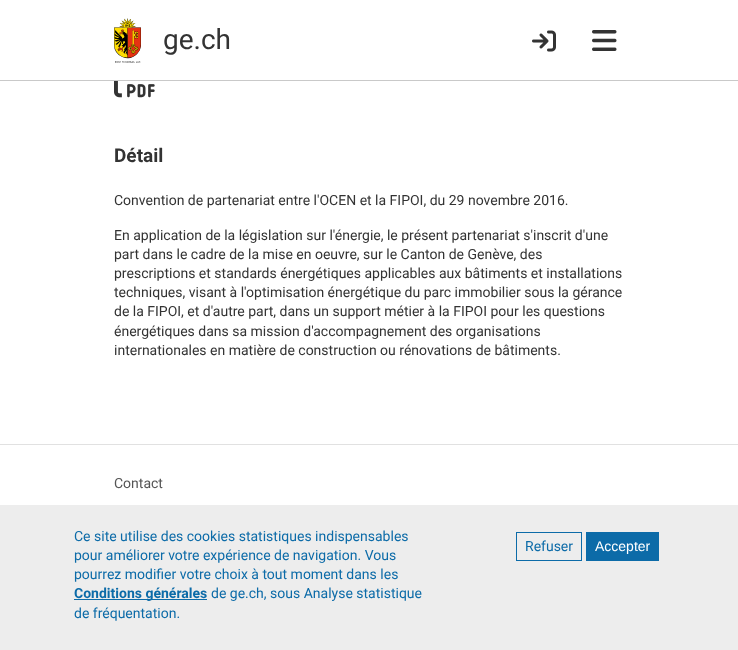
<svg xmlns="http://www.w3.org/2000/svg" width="738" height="650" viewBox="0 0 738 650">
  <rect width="100%" height="100%" fill="#ffffff"/>
  <rect x="0" y="80" width="738" height="1" fill="#c9c9c9"/>
  <image x="114" y="18" width="27" height="45" href="img1.png"/>
  <text x="163" y="49" font-family="Roboto" font-size="28" fill="#333333">ge.ch</text>
  <image x="532" y="30" width="24" height="22" href="img2.png"/>
  <image x="592" y="30" width="25" height="21" href="img3.png"/>
  <image x="114" y="81" width="41" height="17" href="img4.png"/>
  <text x="114" y="162" font-family="Roboto" font-size="19" font-weight="bold" fill="#333333">Détail</text>
  <text x="114" y="205" font-family="Roboto" font-size="14" fill="#333333">Convention de partenariat entre l'OCEN et la FIPOI, du 29 novembre 2016.</text>
  <text x="114" y="240" font-family="Roboto" font-size="14" fill="#333333">En application de la législation sur l'énergie, le présent partenariat s'inscrit d'une</text>
  <text x="114" y="259" font-family="Roboto" font-size="14" fill="#333333">part dans le cadre de la mise en oeuvre, sur le Canton de Genève, des</text>
  <text x="114" y="278" font-family="Roboto" font-size="14" fill="#333333">prescriptions et standards énergétiques applicables aux bâtiments et installations</text>
  <text x="114" y="297" font-family="Roboto" font-size="14" fill="#333333">techniques, visant à l'optimisation énergétique du parc immobilier sous la gérance</text>
  <text x="114" y="316" font-family="Roboto" font-size="14" fill="#333333">de la FIPOI, et d'autre part, dans un support métier à la FIPOI pour les questions</text>
  <text x="114" y="336" font-family="Roboto" font-size="14" fill="#333333">énergétiques dans sa mission d'accompagnement des organisations</text>
  <text x="114" y="355" font-family="Roboto" font-size="14" fill="#333333">internationales en matière de construction ou rénovations de bâtiments.</text>
  <rect x="0" y="444" width="738" height="1" fill="#e1e1e1"/>
  <text x="114" y="488" font-family="Roboto" font-size="14" fill="#555555">Contact</text>
  <rect x="0" y="505" width="738" height="145" fill="#ededed"/>
  <text x="74" y="541" font-family="Roboto" font-size="14" fill="#0c6ba8">Ce site utilise des cookies statistiques indispensables</text>
  <text x="74" y="560" font-family="Roboto" font-size="14" fill="#0c6ba8">pour améliorer votre expérience de navigation. Vous</text>
  <text x="74" y="579" font-family="Roboto" font-size="14" fill="#0c6ba8">pourrez modifier votre choix à tout moment dans les</text>
  <rect x="74" y="599" width="133" height="1" fill="#0c6ba8"/>
  <text x="74" y="598" font-family="Roboto" font-size="14" font-weight="bold" fill="#0c6ba8">Conditions générales</text>
  <text x="211" y="598" font-family="Roboto" font-size="14" fill="#0c6ba8">de ge.ch, sous Analyse statistique</text>
  <text x="74" y="618" font-family="Roboto" font-size="14" fill="#0c6ba8">de fréquentation.</text>
  <rect x="516.5" y="532.5" width="65" height="28" fill="none" stroke="#0c6ba8"/>
  <text x="525" y="551" font-family="Roboto" font-size="14" fill="#0c6ba8">Refuser</text>
  <rect x="586" y="532" width="73" height="29" fill="#0c6ba8"/>
  <text x="595" y="551" font-family="Liberation Sans" font-size="14" fill="#ffffff">Accepter</text>
</svg>
